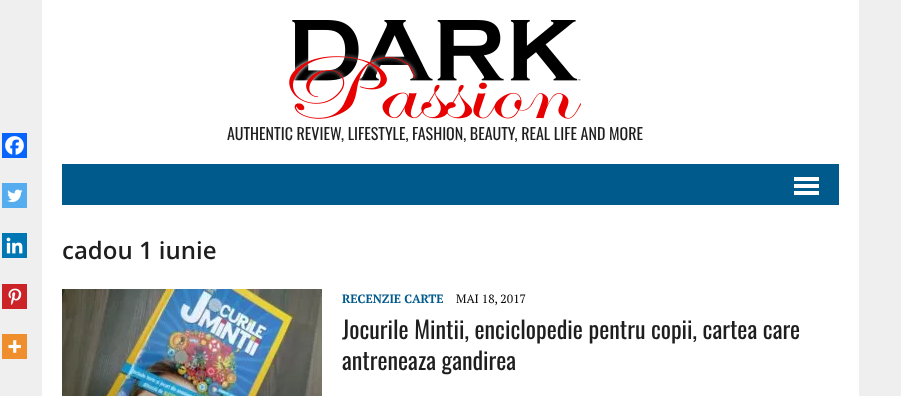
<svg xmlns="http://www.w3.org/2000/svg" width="901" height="396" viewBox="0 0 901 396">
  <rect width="100%" height="100%" fill="#efefef"/>
  <rect x="42" y="0" width="817" height="396" fill="#ffffff"/>
  <image x="289" y="20" width="292" height="99" href="img1.png"/>
  <text x="227" y="140" font-family="Oswald" font-size="16" fill="#1f1e1e">AUTHENTIC REVIEW, LIFESTYLE, FASHION, BEAUTY, REAL LIFE AND MORE</text>
  <rect x="62" y="164" width="777" height="41" fill="#005a8c"/>
  <rect x="794" y="177" width="25" height="4" fill="#ffffff"/>
  <rect x="794" y="184" width="25" height="4" fill="#ffffff"/>
  <rect x="794" y="191" width="25" height="4" fill="#ffffff"/>
  <text x="62" y="259" font-family="Open Sans" font-size="24" font-weight="600" fill="#1f1e1e">cadou 1 iunie</text>
  <rect x="2" y="133" width="25" height="25" fill="#0765fe"/>
  <image x="5" y="136" width="19" height="19" href="img2.png"/>
  <rect x="2" y="183" width="25" height="25" fill="#55acee"/>
  <image x="7" y="189" width="16" height="14" href="img3.png"/>
  <rect x="2" y="233" width="25" height="25" fill="#0077b5"/>
  <image x="6" y="237" width="17" height="17" href="img4.png"/>
  <rect x="2" y="284" width="25" height="25" fill="#cc2329"/>
  <image x="8" y="288" width="14" height="17" href="img5.png"/>
  <rect x="2" y="334" width="25" height="25" fill="#ee8e2d"/>
  <image x="8" y="340" width="13" height="13" href="img6.png"/>
  <image x="62" y="289" width="260" height="107" href="img7.png"/>
  <text x="342" y="303" font-family="PT Serif" font-size="12" font-weight="bold" fill="#005a8c">RECENZIE CARTE</text>
  <text x="456" y="303" font-family="PT Serif" font-size="12" fill="#000000">MAI 18, 2017</text>
  <text x="342" y="339" font-family="Oswald" font-size="24" fill="#1f1e1e">Jocurile Mintii, enciclopedie pentru copii, cartea care</text>
  <text x="342" y="370" font-family="Oswald" font-size="24" fill="#1f1e1e">antreneaza gandirea</text>
</svg>
